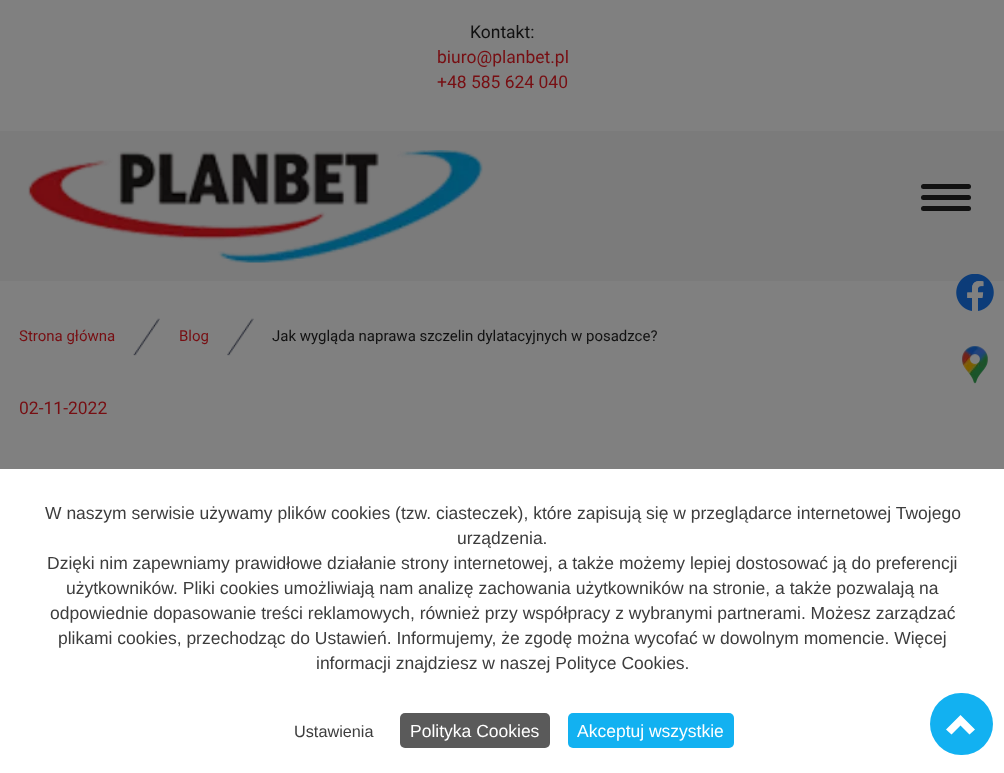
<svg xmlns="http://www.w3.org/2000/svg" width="1004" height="773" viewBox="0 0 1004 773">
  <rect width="100%" height="100%" fill="#808080"/>
  <text x="470" y="38" font-family="Roboto" font-size="17.5" fill="#111111">Kontakt:</text>
  <text x="437" y="63" font-family="Roboto" font-size="17.5" fill="#770e12">biuro@planbet.pl</text>
  <text x="437" y="88" font-family="Roboto" font-size="17.5" fill="#770e12">+48 585 624 040</text>
  <rect x="0" y="131" width="1004" height="150" fill="#7b7b7b"/>
  <image x="28" y="150" width="455" height="113" href="img1.png"/>
  <rect x="921" y="184" width="50" height="5" rx="2.5" fill="#111111"/>
  <rect x="921" y="195" width="50" height="5" rx="2.5" fill="#111111"/>
  <rect x="921" y="206" width="50" height="5" rx="2.5" fill="#111111"/>
  <text x="19" y="341" font-family="Roboto" font-size="15" fill="#770e12">Strona główna</text>
  <image x="133" y="318" width="27" height="38" href="img2.png"/>
  <text x="179" y="341" font-family="Roboto" font-size="15" fill="#770e12">Blog</text>
  <image x="227" y="318" width="27" height="38" href="img3.png"/>
  <text x="272" y="341" font-family="Roboto" font-size="15" fill="#111111">Jak wygląda naprawa szczelin dylatacyjnych w posadzce?</text>
  <text x="19" y="414" font-family="Roboto" font-size="17.5" fill="#770e12">02-11-2022</text>
  <image x="956" y="274" width="38" height="37" href="img4.png"/>
  <image x="962" y="346" width="26" height="38" href="img5.png"/>
  <rect x="0" y="469" width="1004" height="304" fill="#ffffff"/>
  <rect x="930" y="693" width="63" height="62" rx="31" fill="#12b1f1"/>
  <path d="M975 729.5L969.5 734.5L960.5 725.5L951.5 734.5L946 729.5L960.5 715Z" fill="#ffffff"/>
  <text x="45" y="519" font-family="Liberation Sans" font-size="17.5" fill="#3d3d3d">W naszym serwisie używamy plików cookies (tzw. ciasteczek), które zapisują się w przeglądarce internetowej Twojego</text>
  <text x="457" y="544" font-family="Liberation Sans" font-size="17.5" fill="#3d3d3d">urządzenia.</text>
  <text x="47" y="569" font-family="Liberation Sans" font-size="17.5" fill="#3d3d3d">Dzięki nim zapewniamy prawidłowe działanie strony internetowej, a także możemy lepiej dostosować ją do preferencji</text>
  <text x="66" y="594" font-family="Liberation Sans" font-size="17.5" fill="#3d3d3d">użytkowników. Pliki cookies umożliwiają nam analizę zachowania użytkowników na stronie, a także pozwalają na</text>
  <text x="50" y="619" font-family="Liberation Sans" font-size="17.5" fill="#3d3d3d">odpowiednie dopasowanie treści reklamowych, również przy współpracy z wybranymi partnerami. Możesz zarządzać</text>
  <text x="58" y="644" font-family="Liberation Sans" font-size="17.5" fill="#3d3d3d">plikami cookies, przechodząc do Ustawień. Informujemy, że zgodę można wycofać w dowolnym momencie. Więcej</text>
  <text x="316" y="669" font-family="Liberation Sans" font-size="17.5" fill="#3d3d3d">informacji znajdziesz w naszej Polityce Cookies.</text>
  <text x="294" y="737" font-family="Liberation Sans" font-size="16.25" fill="#3d3d3d">Ustawienia</text>
  <rect x="400" y="713" width="150" height="35" rx="5" fill="#5a5a5a"/>
  <text x="410" y="737" font-family="Liberation Sans" font-size="17.5" fill="#ffffff">Polityka Cookies</text>
  <rect x="568" y="713" width="166" height="35" rx="5" fill="#12b1f1"/>
  <text x="577" y="737" font-family="Liberation Sans" font-size="17.5" fill="#ffffff">Akceptuj wszystkie</text>
</svg>
